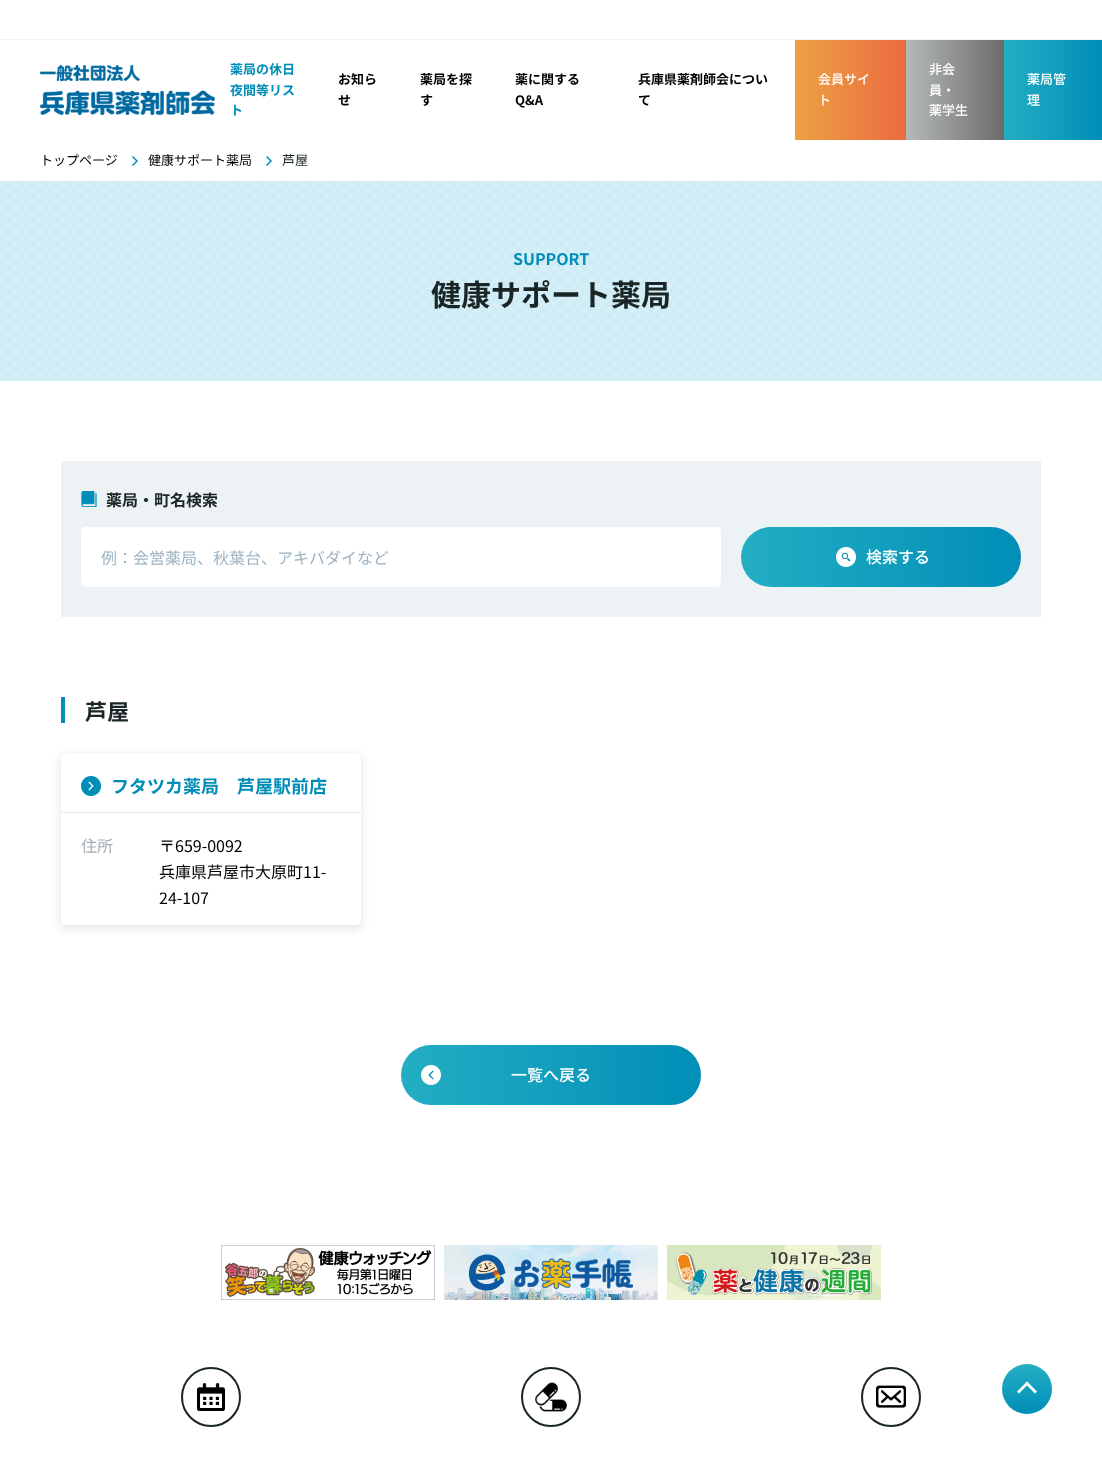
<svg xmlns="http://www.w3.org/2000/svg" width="1102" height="1464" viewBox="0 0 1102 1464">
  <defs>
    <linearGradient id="g1" gradientUnits="userSpaceOnUse" x1="795" y1="90" x2="1017" y2="90"><stop offset="0" stop-color="#eca141"/><stop offset="0.51" stop-color="#ec6a41"/><stop offset="1" stop-color="#eca141"/></linearGradient>
    <linearGradient id="g2" gradientUnits="userSpaceOnUse" x1="906" y1="90" x2="1102" y2="90"><stop offset="0" stop-color="#b4bab9"/><stop offset="0.51" stop-color="#6d696a"/><stop offset="1" stop-color="#b4bab9"/></linearGradient>
    <linearGradient id="g3" gradientUnits="userSpaceOnUse" x1="1004" y1="90" x2="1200" y2="90"><stop offset="0" stop-color="#23aec3"/><stop offset="0.51" stop-color="#008db7"/><stop offset="1" stop-color="#23aec3"/></linearGradient>
    <linearGradient id="g4" gradientUnits="userSpaceOnUse" x1="741" y1="557" x2="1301" y2="557"><stop offset="0" stop-color="#23aec3"/><stop offset="0.51" stop-color="#008db7"/><stop offset="1" stop-color="#23aec3"/></linearGradient>
    <clipPath id="clip1"><path d="M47 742H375V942H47ZM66 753H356C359 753 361 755 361 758V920C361 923 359 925 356 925H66C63 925 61 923 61 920V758C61 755 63 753 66 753Z" clip-rule="evenodd"/></clipPath>
    <filter id="blur1" x="-50%" y="-200%" width="200%" height="500%"><feGaussianBlur stdDeviation="4"/></filter>
    <linearGradient id="g5" gradientUnits="userSpaceOnUse" x1="401" y1="1075" x2="1001" y2="1075"><stop offset="0" stop-color="#23aec3"/><stop offset="0.51" stop-color="#008db7"/><stop offset="1" stop-color="#23aec3"/></linearGradient>
    <linearGradient id="g6" gradientUnits="userSpaceOnUse" x1="1027" y1="1364" x2="1027" y2="1464"><stop offset="0" stop-color="#23aec3"/><stop offset="0.51" stop-color="#008db7"/><stop offset="1" stop-color="#23aec3"/></linearGradient>
  </defs>
  <rect width="100%" height="100%" fill="#ffffff"/>
  <rect x="0" y="39" width="1102" height="1" fill="#f3f3f3"/>
  <image x="40" y="65" width="175" height="50" href="img1.png"/>
  <text x="230" y="74" font-family="Noto Sans JP" font-size="13" font-weight="bold" fill="#008db7">薬局の休日</text>
  <text x="230" y="95" font-family="Noto Sans JP" font-size="13" font-weight="bold" fill="#008db7">夜間等リス</text>
  <text x="230" y="115" font-family="Noto Sans JP" font-size="13" font-weight="bold" fill="#008db7">ト</text>
  <text x="338" y="84" font-family="Noto Sans JP" font-size="13" font-weight="bold" fill="#000000">お知ら</text>
  <text x="338" y="105" font-family="Noto Sans JP" font-size="13" font-weight="bold" fill="#000000">せ</text>
  <text x="420" y="84" font-family="Noto Sans JP" font-size="13" font-weight="bold" fill="#000000">薬局を探</text>
  <text x="420" y="105" font-family="Noto Sans JP" font-size="13" font-weight="bold" fill="#000000">す</text>
  <text x="515" y="84" font-family="Noto Sans JP" font-size="13" font-weight="bold" fill="#000000">薬に関する</text>
  <text x="515" y="105" font-family="Noto Sans JP" font-size="13" font-weight="bold" fill="#000000">Q&amp;A</text>
  <text x="638" y="84" font-family="Noto Sans JP" font-size="13" font-weight="bold" fill="#000000">兵庫県薬剤師会につい</text>
  <text x="638" y="105" font-family="Noto Sans JP" font-size="13" font-weight="bold" fill="#000000">て</text>
  <rect x="795" y="40" width="111" height="100" fill="url(#g1)"/>
  <text x="818" y="84" font-family="Noto Sans JP" font-size="13" font-weight="500" fill="#ffffff">会員サイ</text>
  <text x="818" y="105" font-family="Noto Sans JP" font-size="13" font-weight="500" fill="#ffffff">ト</text>
  <rect x="906" y="40" width="98" height="100" fill="url(#g2)"/>
  <text x="929" y="74" font-family="Noto Sans JP" font-size="13" font-weight="500" fill="#ffffff">非会</text>
  <text x="929" y="95" font-family="Noto Sans JP" font-size="13" font-weight="500" fill="#ffffff">員・</text>
  <text x="929" y="115" font-family="Noto Sans JP" font-size="13" font-weight="500" fill="#ffffff">薬学生</text>
  <rect x="1004" y="40" width="98" height="100" fill="url(#g3)"/>
  <text x="1027" y="84" font-family="Noto Sans JP" font-size="13" font-weight="500" fill="#ffffff">薬局管</text>
  <text x="1027" y="105" font-family="Noto Sans JP" font-size="13" font-weight="500" fill="#ffffff">理</text>
  <text x="40" y="165" font-family="Noto Sans JP" font-size="13" fill="#000000">トップページ</text>
  <image x="132" y="156" width="6" height="10" href="img2.png"/>
  <text x="148" y="165" font-family="Noto Sans JP" font-size="13" fill="#000000">健康サポート薬局</text>
  <image x="266" y="156" width="6" height="10" href="img2.png"/>
  <text x="282" y="165" font-family="Noto Sans JP" font-size="13" fill="#1a2526">芦屋</text>
  <image x="0" y="181" width="1102" height="200" href="img3.png"/>
  <text x="513" y="265" font-family="Noto Sans JP" font-size="16" font-weight="bold" fill="#008db7">SUPPORT</text>
  <text x="431" y="306" font-family="Noto Sans JP" font-size="30" font-weight="bold" fill="#1a2526">健康サポート薬局</text>
  <rect x="61" y="461" width="980" height="156" fill="#edf3f5"/>
  <image x="81" y="491" width="16" height="16" href="img4.png"/>
  <text x="106" y="506" font-family="Noto Sans JP" font-size="16" font-weight="bold" fill="#1a2526">薬局・町名検索</text>
  <rect x="81" y="527" width="640" height="60" rx="5" fill="#ffffff"/>
  <text x="101" y="564" font-family="Noto Sans JP" font-size="16" fill="#9cb3c3">例：会営薬局、秋葉台、アキバダイなど</text>
  <rect x="741" y="527" width="280" height="60" rx="30" fill="url(#g4)"/>
  <image x="836" y="547" width="20" height="20" href="img5.png"/>
  <text x="866" y="563" font-family="Noto Sans JP" font-size="16" font-weight="500" fill="#ffffff">検索する</text>
  <rect x="61" y="697" width="4" height="26" fill="#008db7"/>
  <text x="85" y="720" font-family="Noto Sans JP" font-size="22" font-weight="bold" fill="#1a2526">芦屋</text>
  <g clip-path="url(#clip1)">
    <rect x="60" y="755" width="302" height="174" rx="6" fill="#000000" fill-opacity="0.1" filter="url(#blur1)"/>
  </g>
  <image x="81" y="776" width="20" height="20" href="img6.png"/>
  <text x="111" y="793" font-family="Noto Sans JP" font-size="18" font-weight="bold" fill="#008db7">フタツカ薬局　芦屋駅前店</text>
  <rect x="61" y="812" width="300" height="1" fill="#e6e6e6"/>
  <text x="81" y="852" font-family="Noto Sans JP" font-size="16" fill="#a2acb5">住所</text>
  <text x="159" y="852" font-family="Noto Sans JP" font-size="16" fill="#000000">〒659-0092</text>
  <text x="159" y="878" font-family="Noto Sans JP" font-size="16" fill="#000000">兵庫県芦屋市大原町11-</text>
  <text x="159" y="904" font-family="Noto Sans JP" font-size="16" fill="#000000">24-107</text>
  <rect x="401" y="1045" width="300" height="60" rx="30" fill="url(#g5)"/>
  <image x="421" y="1065" width="20" height="20" href="img7.png"/>
  <text x="511" y="1081" font-family="Noto Sans JP" font-size="16" font-weight="500" fill="#ffffff">一覧へ戻る</text>
  <image x="221" y="1245" width="214" height="55" href="img8.png"/>
  <image x="444" y="1245" width="214" height="55" href="img9.png"/>
  <image x="667" y="1245" width="214" height="55" href="img10.png"/>
  <circle cx="211" cy="1397" r="29" fill="none" stroke="#1a2526" stroke-width="2"/>
  <image x="197" y="1383" width="28" height="28" href="img11.png"/>
  <circle cx="551" cy="1397" r="29" fill="none" stroke="#1a2526" stroke-width="2"/>
  <image x="535" y="1382" width="32" height="30" href="img12.png"/>
  <circle cx="891" cy="1397" r="29" fill="none" stroke="#1a2526" stroke-width="2"/>
  <image x="876" y="1385" width="30" height="23" href="img13.png"/>
  <circle cx="1027" cy="1389" r="25" fill="url(#g6)"/>
  <path d="M1017 1391.5L1027 1381.5L1029 1383.5L1019 1393.5Z" fill="#ffffff"/>
  <path d="M1025 1383.5L1027 1381.5L1037 1391.5L1035 1393.5Z" fill="#ffffff"/>
</svg>
